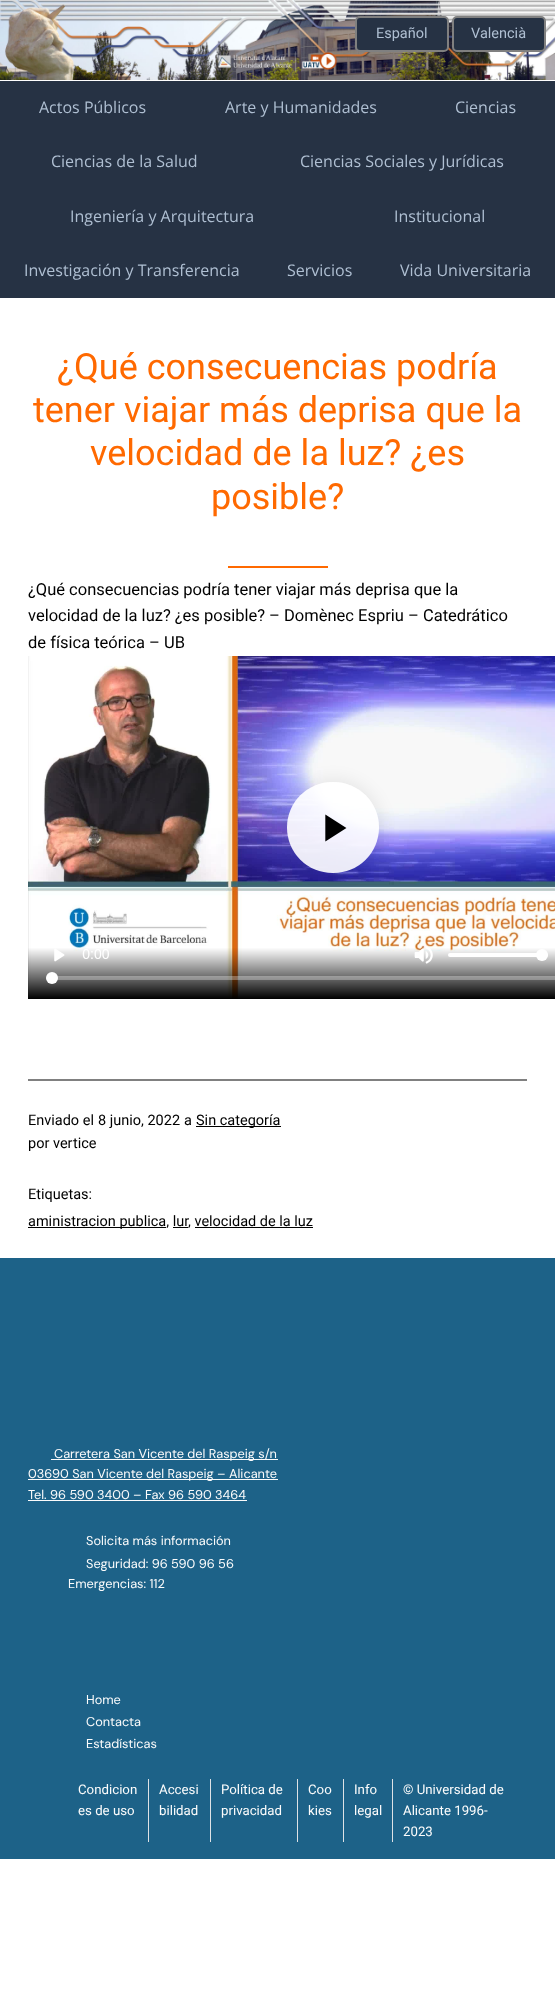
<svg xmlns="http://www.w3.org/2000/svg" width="555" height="1997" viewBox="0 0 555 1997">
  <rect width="100%" height="100%" fill="#ffffff"/>
  <image x="0" y="0" width="555" height="80" href="img1.png"/>
  <rect x="356" y="17" width="92" height="34" rx="4" fill="#263244" stroke="#808080" stroke-width="2"/>
  <text x="376" y="38" font-family="Roboto" font-size="14.5" fill="#afbfd2">Español</text>
  <rect x="453" y="17" width="92" height="34" rx="4" fill="#263244" stroke="#808080" stroke-width="2"/>
  <text x="471" y="38" font-family="Roboto" font-size="14.5" fill="#afbfd2">Valencià</text>
  <rect x="0" y="81" width="555" height="217" fill="#263244"/>
  <text x="39" y="113" font-family="Open Sans" font-size="16" fill="#afbfd2">Actos Públicos</text>
  <text x="225" y="113" font-family="Open Sans" font-size="16" fill="#afbfd2">Arte y Humanidades</text>
  <text x="455" y="113" font-family="Open Sans" font-size="16" fill="#afbfd2">Ciencias</text>
  <text x="51" y="167" font-family="Open Sans" font-size="16" fill="#afbfd2">Ciencias de la Salud</text>
  <text x="300" y="167" font-family="Open Sans" font-size="16" fill="#afbfd2">Ciencias Sociales y Jurídicas</text>
  <text x="70" y="222" font-family="Open Sans" font-size="16" fill="#afbfd2">Ingeniería y Arquitectura</text>
  <text x="394" y="222" font-family="Open Sans" font-size="16" fill="#afbfd2">Institucional</text>
  <text x="24" y="276" font-family="Open Sans" font-size="16" fill="#afbfd2">Investigación y Transferencia</text>
  <text x="287" y="276" font-family="Open Sans" font-size="16" fill="#afbfd2">Servicios</text>
  <text x="400" y="276" font-family="Open Sans" font-size="16" fill="#afbfd2">Vida Universitaria</text>
  <text x="57" y="379" font-family="Roboto" font-size="36" fill="#ff6900">¿Qué consecuencias podría</text>
  <text x="33" y="422" font-family="Roboto" font-size="36" fill="#ff6900">tener viajar más deprisa que la</text>
  <text x="90" y="465" font-family="Roboto" font-size="36" fill="#ff6900">velocidad de la luz? ¿es</text>
  <text x="211" y="509" font-family="Roboto" font-size="36" fill="#ff6900">posible?</text>
  <rect x="228" y="566" width="100" height="2" fill="#ff6900"/>
  <text x="28" y="595" font-family="Roboto" font-size="16.5" fill="#000000">¿Qué consecuencias podría tener viajar más deprisa que la</text>
  <text x="28" y="621" font-family="Roboto" font-size="16.5" fill="#000000">velocidad de la luz? ¿es posible? – Domènec Espriu – Catedrático</text>
  <text x="28" y="648" font-family="Roboto" font-size="16.5" fill="#000000">de física teórica – UB</text>
  <image x="28" y="656" width="527" height="343" href="img2.png"/>
  <rect x="28" y="1079" width="499" height="2" fill="#808080"/>
  <text x="28" y="1125" font-family="Roboto" font-size="14.5" fill="#000000">Enviado el</text>
  <text x="98" y="1125" font-family="Roboto" font-size="14.5" fill="#000000">8 junio, 2022</text>
  <text x="184" y="1125" font-family="Roboto" font-size="14.5" fill="#000000">a</text>
  <rect x="196" y="1126" width="85" height="1" fill="#000000"/>
  <text x="196" y="1125" font-family="Roboto" font-size="14.5" fill="#000000">Sin categoría</text>
  <text x="28" y="1148" font-family="Roboto" font-size="14.5" fill="#000000">por</text>
  <text x="53" y="1148" font-family="Roboto" font-size="14.5" fill="#000000">vertice</text>
  <text x="28" y="1199" font-family="Roboto" font-size="14.5" fill="#000000">Etiquetas:</text>
  <rect x="28" y="1227" width="138" height="1" fill="#000000"/>
  <text x="28" y="1226" font-family="Roboto" font-size="14.5" fill="#000000">aministracion publica, lur</text>
  <text x="188" y="1226" font-family="Roboto" font-size="14.5" fill="#000000">, velocidad de la luz</text>
  <rect x="173" y="1227" width="15" height="1" fill="#000000"/>
  <rect x="195" y="1227" width="118" height="1" fill="#000000"/>
  <rect x="0" y="1258" width="555" height="601" fill="#1d6288"/>
  <rect x="51" y="1459" width="227" height="1" fill="#fcfcfc"/>
  <text x="54" y="1458" font-family="DM Sans" font-size="12.75" fill="#fcfcfc">Carretera San Vicente del Raspeig s/n</text>
  <rect x="28" y="1479" width="250" height="1" fill="#fcfcfc"/>
  <text x="28" y="1478" font-family="DM Sans" font-size="12.75" fill="#fcfcfc">03690 San Vicente del Raspeig – Alicante</text>
  <text x="28" y="1499" font-family="DM Sans" font-size="12.75" fill="#fcfcfc">Tel. 96 590 3400 – Fax 96 590 3464</text>
  <rect x="28" y="1500" width="219" height="1" fill="#fcfcfc"/>
  <text x="86" y="1545" font-family="DM Sans" font-size="12.75" fill="#fcfcfc">Solicita más información</text>
  <text x="86" y="1568" font-family="DM Sans" font-size="12.75" fill="#fcfcfc">Seguridad: 96 590 96 56</text>
  <text x="68" y="1588" font-family="DM Sans" font-size="12.75" fill="#fcfcfc">Emergencias: 112</text>
  <text x="86" y="1704" font-family="DM Sans" font-size="12.75" fill="#fcfcfc">Home</text>
  <text x="86" y="1726" font-family="DM Sans" font-size="12.75" fill="#fcfcfc">Contacta</text>
  <text x="86" y="1748" font-family="DM Sans" font-size="12.75" fill="#fcfcfc">Estadísticas</text>
  <rect x="148" y="1779" width="1" height="63" fill="#dee2e6"/>
  <text x="78" y="1794" font-family="Roboto" font-size="13.25" fill="#fcfcfc">Condicion</text>
  <text x="78" y="1815" font-family="Roboto" font-size="13.25" fill="#fcfcfc">es de uso</text>
  <rect x="210" y="1779" width="1" height="63" fill="#dee2e6"/>
  <text x="159" y="1794" font-family="Roboto" font-size="13.25" fill="#fcfcfc">Accesi</text>
  <text x="159" y="1815" font-family="Roboto" font-size="13.25" fill="#fcfcfc">bilidad</text>
  <rect x="297" y="1779" width="1" height="63" fill="#dee2e6"/>
  <text x="221" y="1794" font-family="Roboto" font-size="13.25" fill="#fcfcfc">Política de</text>
  <text x="221" y="1815" font-family="Roboto" font-size="13.25" fill="#fcfcfc">privacidad</text>
  <rect x="343" y="1779" width="1" height="63" fill="#dee2e6"/>
  <text x="308" y="1794" font-family="Roboto" font-size="13.25" fill="#fcfcfc">Coo</text>
  <text x="308" y="1815" font-family="Roboto" font-size="13.25" fill="#fcfcfc">kies</text>
  <rect x="392" y="1779" width="1" height="63" fill="#dee2e6"/>
  <text x="354" y="1794" font-family="Roboto" font-size="13.25" fill="#fcfcfc">Info</text>
  <text x="354" y="1815" font-family="Roboto" font-size="13.25" fill="#fcfcfc">legal</text>
  <text x="403" y="1794" font-family="Roboto" font-size="13.25" fill="#fcfcfc">© Universidad de</text>
  <text x="403" y="1815" font-family="Roboto" font-size="13.25" fill="#fcfcfc">Alicante 1996-</text>
  <text x="403" y="1836" font-family="Roboto" font-size="13.25" fill="#fcfcfc">2023</text>
</svg>
